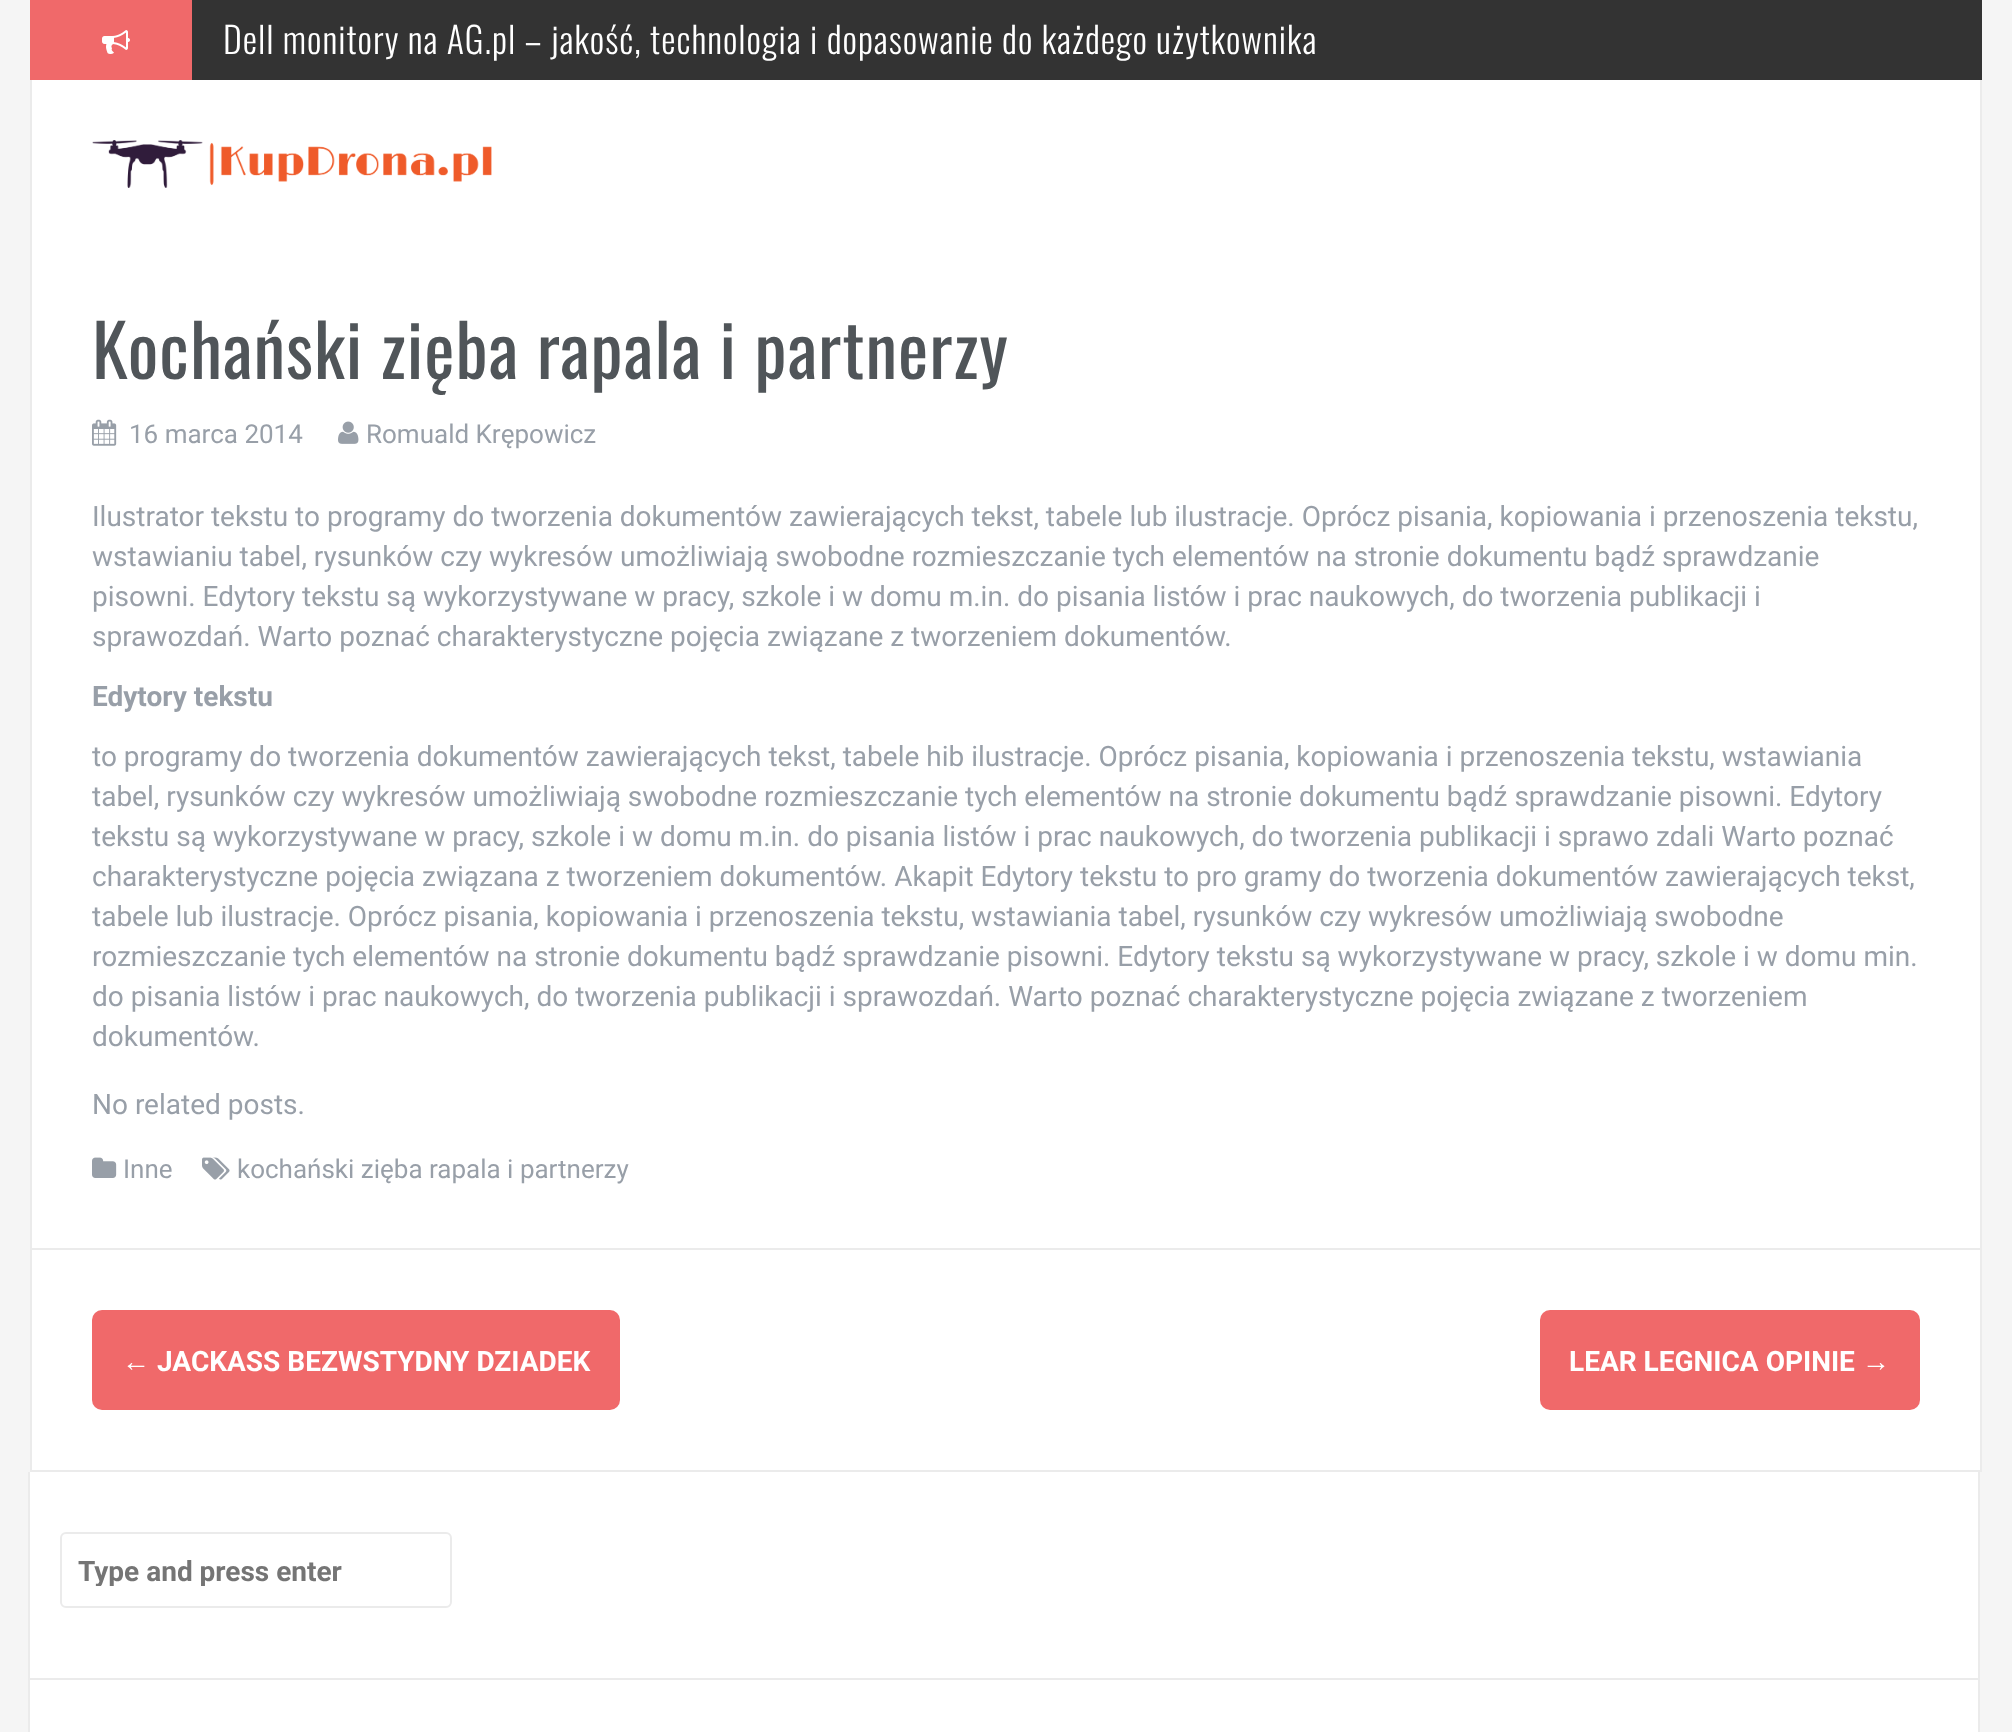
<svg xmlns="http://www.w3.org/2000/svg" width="2012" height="1732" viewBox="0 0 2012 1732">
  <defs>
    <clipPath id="clip1"><rect x="78" y="1554" width="348" height="32"/></clipPath>
  </defs>
  <rect width="100%" height="100%" fill="#f5f5f5"/>
  <rect x="30" y="0" width="162" height="80" fill="#f0696a"/>
  <image x="102" y="30" width="28" height="24" href="img1.png"/>
  <rect x="192" y="0" width="1790" height="80" fill="#333333"/>
  <text x="223" y="54" font-family="Oswald" font-size="36" font-weight="300" letter-spacing="1" fill="#ffffff">Dell monitory na AG.pl – jakość, technologia i dopasowanie do każdego użytkownika</text>
  <rect x="32" y="80" width="1948" height="1168" fill="#ffffff"/>
  <rect x="1980" y="80" width="2" height="1392" fill="#ebebeb"/>
  <rect x="30" y="80" width="2" height="168" fill="#ebebeb"/>
  <image x="92" y="140" width="400" height="48" href="img2.png"/>
  <rect x="30" y="1248" width="1952" height="2" fill="#ebebeb"/>
  <rect x="30" y="248" width="2" height="1002" fill="#ebebeb"/>
  <text x="92" y="379" font-family="Oswald" font-size="72" letter-spacing="1" fill="#505559">Kochański zięba rapala i partnerzy</text>
  <image x="92" y="419" width="25" height="27" href="img3.png"/>
  <text x="129" y="443" font-family="Roboto" font-size="26" fill="#989fa8">16 marca 2014</text>
  <image x="338" y="421" width="21" height="23" href="img4.png"/>
  <text x="366" y="443" font-family="Roboto" font-size="26" fill="#989fa8">Romuald Krępowicz</text>
  <text x="92" y="526" font-family="Roboto" font-size="28" fill="#989fa8">Ilustrator tekstu to programy do tworzenia dokumentów zawierających tekst, tabele lub ilustracje. Oprócz pisania, kopiowania i przenoszenia tekstu,</text>
  <text x="92" y="566" font-family="Roboto" font-size="28" fill="#989fa8">wstawianiu tabel, rysunków czy wykresów umożliwiają swobodne rozmieszczanie tych elementów na stronie dokumentu bądź sprawdzanie</text>
  <text x="92" y="606" font-family="Roboto" font-size="28" fill="#989fa8">pisowni. Edytory tekstu są wykorzystywane w pracy, szkole i w domu m.in. do pisania listów i prac naukowych, do tworzenia publikacji i</text>
  <text x="92" y="646" font-family="Roboto" font-size="28" fill="#989fa8">sprawozdań. Warto poznać charakterystyczne pojęcia związane z tworzeniem dokumentów.</text>
  <text x="92" y="706" font-family="Roboto" font-size="28" font-weight="bold" fill="#989fa8">Edytory tekstu</text>
  <text x="92" y="766" font-family="Roboto" font-size="28" fill="#989fa8">to programy do tworzenia dokumentów zawierających tekst, tabele hib ilustracje. Oprócz pisania, kopiowania i przenoszenia tekstu, wstawiania</text>
  <text x="92" y="806" font-family="Roboto" font-size="28" fill="#989fa8">tabel, rysunków czy wykresów umożliwiają swobodne rozmieszczanie tych elementów na stronie dokumentu bądź sprawdzanie pisowni. Edytory</text>
  <text x="92" y="846" font-family="Roboto" font-size="28" fill="#989fa8">tekstu są wykorzystywane w pracy, szkole i w domu m.in. do pisania listów i prac naukowych, do tworzenia publikacji i sprawo zdali Warto poznać</text>
  <text x="92" y="886" font-family="Roboto" font-size="28" fill="#989fa8">charakterystyczne pojęcia związana z tworzeniem dokumentów. Akapit Edytory tekstu to pro gramy do tworzenia dokumentów zawierających tekst,</text>
  <text x="92" y="926" font-family="Roboto" font-size="28" fill="#989fa8">tabele lub ilustracje. Oprócz pisania, kopiowania i przenoszenia tekstu, wstawiania tabel, rysunków czy wykresów umożliwiają swobodne</text>
  <text x="92" y="966" font-family="Roboto" font-size="28" fill="#989fa8">rozmieszczanie tych elementów na stronie dokumentu bądź sprawdzanie pisowni. Edytory tekstu są wykorzystywane w pracy, szkole i w domu min.</text>
  <text x="92" y="1006" font-family="Roboto" font-size="28" fill="#989fa8">do pisania listów i prac naukowych, do tworzenia publikacji i sprawozdań. Warto poznać charakterystyczne pojęcia związane z tworzeniem</text>
  <text x="92" y="1046" font-family="Roboto" font-size="28" fill="#989fa8">dokumentów.</text>
  <text x="92" y="1114" font-family="Roboto" font-size="28" fill="#989fa8">No related posts.</text>
  <image x="92" y="1157" width="25" height="21" href="img5.png"/>
  <text x="123" y="1178" font-family="Roboto" font-size="26" fill="#989fa8">Inne</text>
  <image x="202" y="1157" width="28" height="23" href="img6.png"/>
  <text x="237" y="1178" font-family="Roboto" font-size="26" fill="#989fa8">kochański zięba rapala i partnerzy</text>
  <rect x="32" y="1250" width="1948" height="220" fill="#ffffff"/>
  <rect x="30" y="1470" width="1952" height="2" fill="#ebebeb"/>
  <rect x="30" y="1250" width="2" height="222" fill="#ebebeb"/>
  <rect x="92" y="1310" width="528" height="100" rx="10" fill="#f0696a"/>
  <text x="122" y="1371" font-family="Liberation Sans" font-size="28" font-weight="bold" fill="#ffffff">←</text>
  <text x="157" y="1371" font-family="Roboto" font-size="28" font-weight="bold" fill="#ffffff">JACKASS BEZWSTYDNY DZIADEK</text>
  <rect x="1540" y="1310" width="380" height="100" rx="10" fill="#f0696a"/>
  <text x="1569" y="1371" font-family="Roboto" font-size="28" font-weight="bold" fill="#ffffff">LEAR LEGNICA OPINIE</text>
  <text x="1862" y="1371" font-family="Liberation Sans" font-size="28" font-weight="bold" fill="#ffffff">→</text>
  <rect x="30" y="1472" width="1948" height="206" fill="#ffffff"/>
  <rect x="1978" y="1472" width="2" height="260" fill="#ebebeb"/>
  <rect x="28" y="1678" width="1952" height="2" fill="#ebebeb"/>
  <rect x="28" y="1472" width="2" height="260" fill="#ebebeb"/>
  <rect x="61" y="1533" width="390" height="74" rx="5" fill="none" stroke="#ebebeb" stroke-width="2"/>
  <g clip-path="url(#clip1)">
    <text x="78" y="1581" font-family="Roboto" font-size="28" font-weight="bold" fill="#757575">Type and press enter</text>
  </g>
  <rect x="30" y="1680" width="1948" height="52" fill="#ffffff"/>
</svg>
